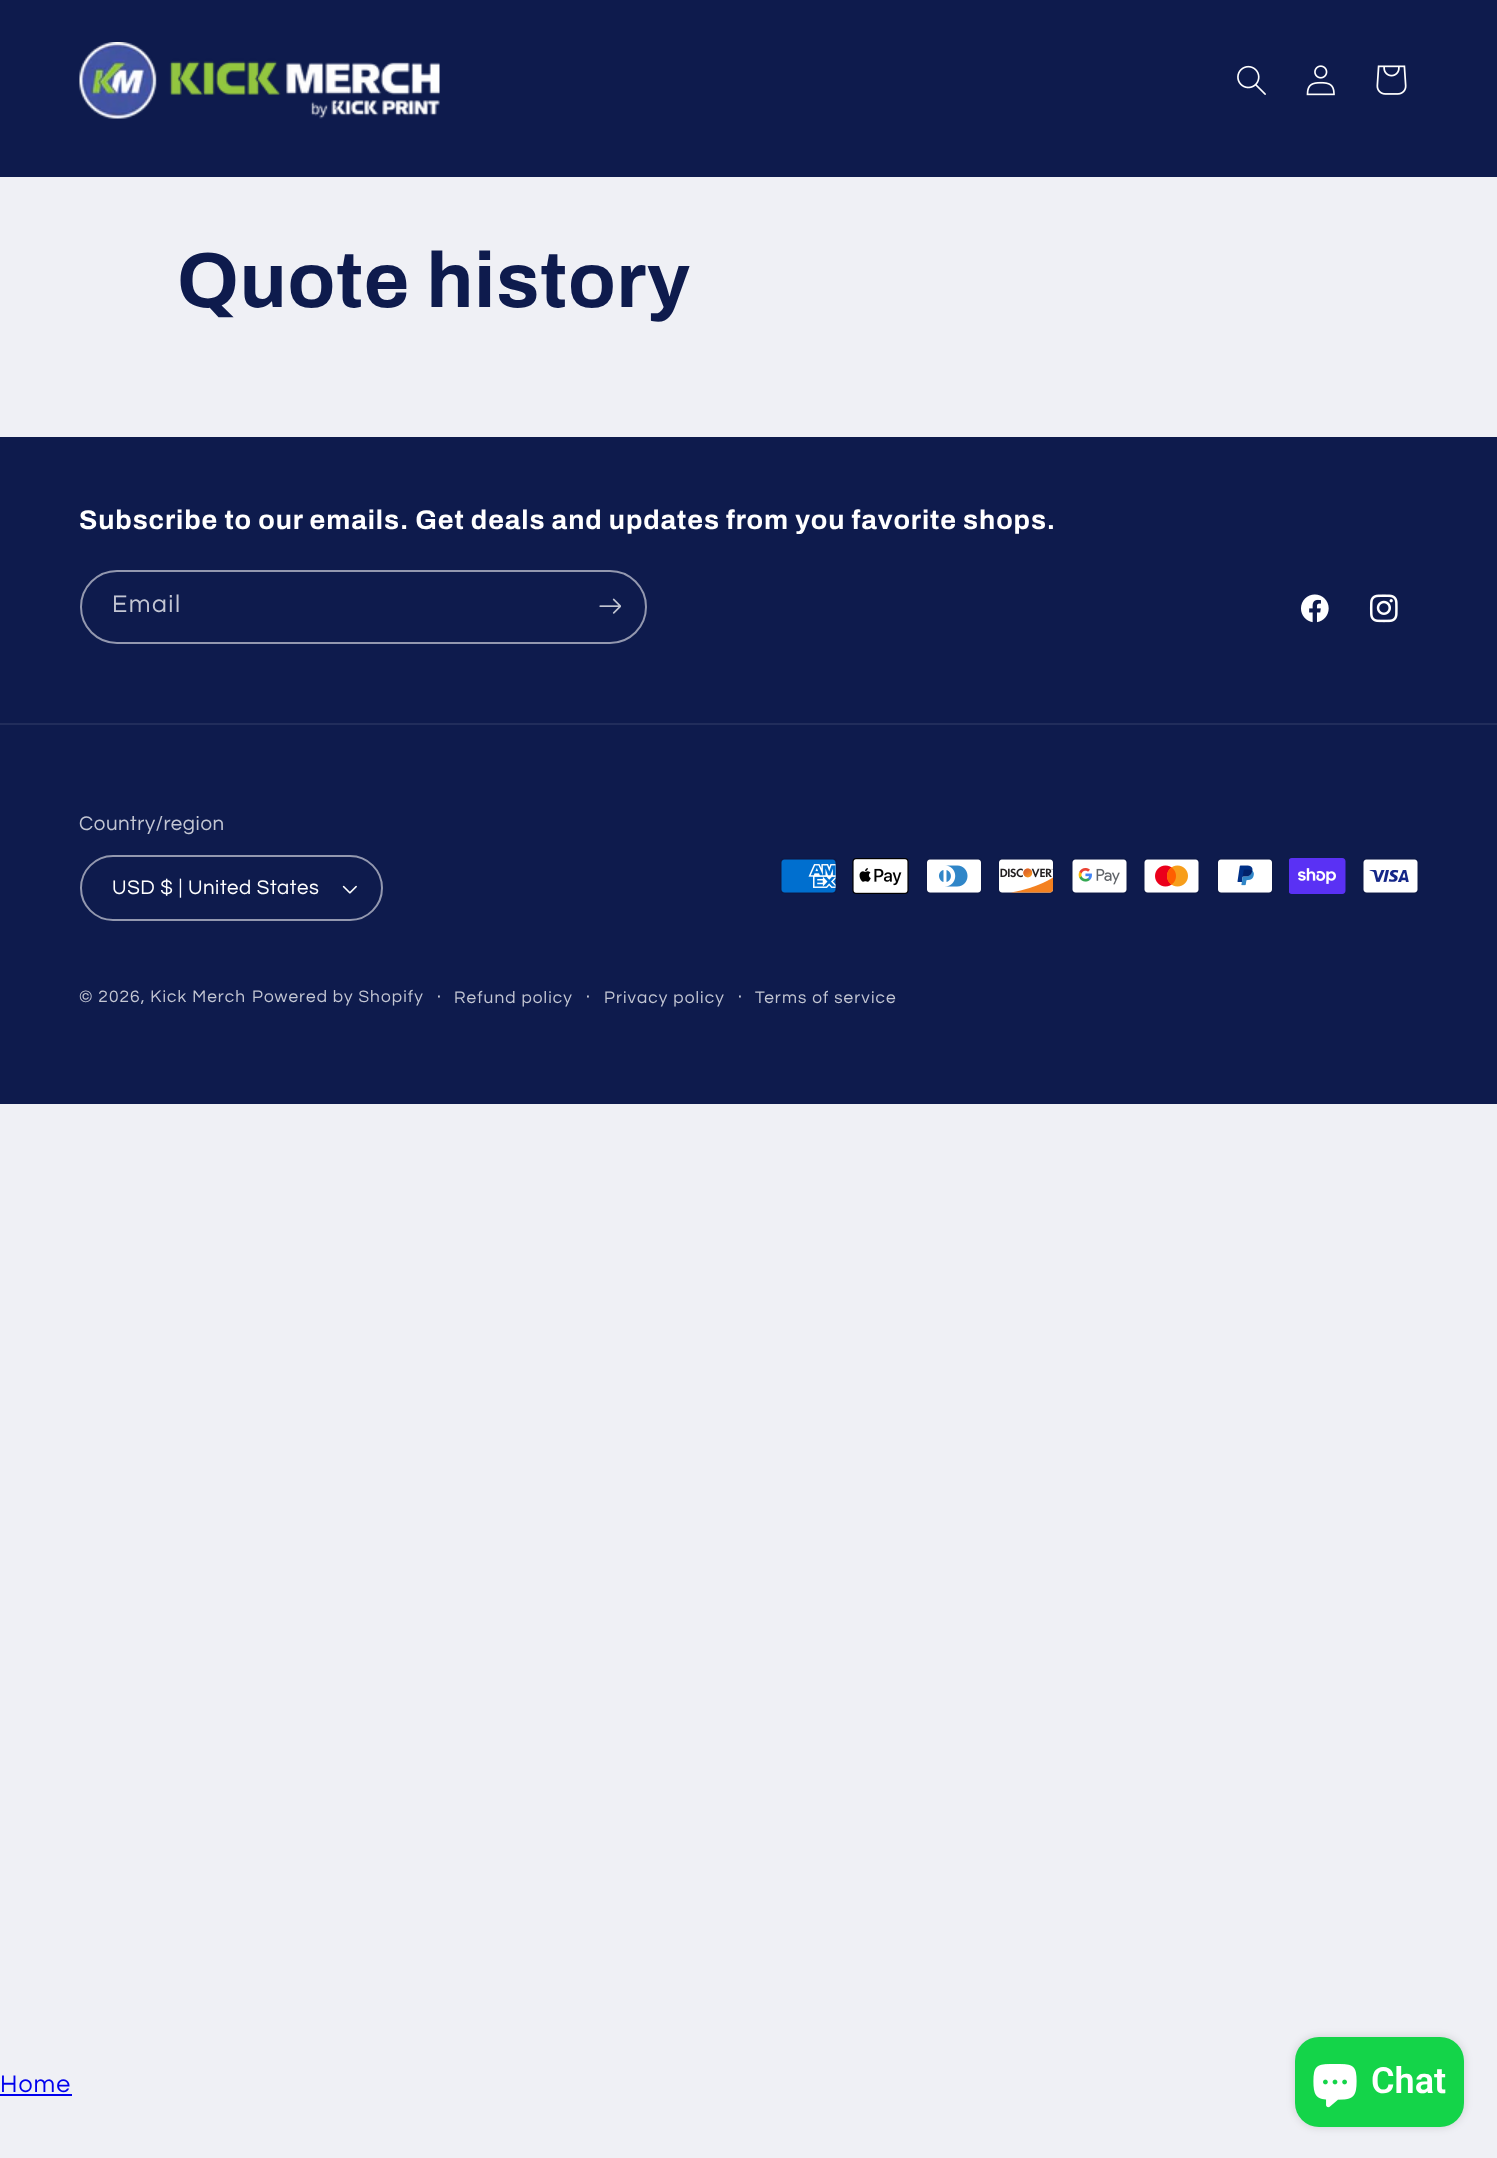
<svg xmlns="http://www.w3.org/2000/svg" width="1497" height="2158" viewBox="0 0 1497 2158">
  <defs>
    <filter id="blur1" x="-50%" y="-200%" width="200%" height="500%"><feGaussianBlur stdDeviation="4"/></filter>
  </defs>
  <rect width="100%" height="100%" fill="#eff0f5"/>
  <rect x="0" y="0" width="1497" height="177" fill="#0e1b4d"/>
  <image x="79" y="42" width="361" height="77" href="img1.png"/>
  <image x="1237" y="65" width="29" height="30" href="img2.png"/>
  <image x="1306" y="65" width="29" height="31" href="img3.png"/>
  <image x="1376" y="65" width="31" height="30" href="img4.png"/>
  <text x="177" y="307" font-family="Archivo" font-size="78" font-weight="bold" letter-spacing="0.9" fill="#0e1b4d">Quote history</text>
  <rect x="0" y="437" width="1497" height="667" fill="#0e1b4d"/>
  <text x="79" y="529" font-family="Archivo" font-size="27" font-weight="bold" letter-spacing="0.9" fill="#ffffff">Subscribe to our emails. Get deals and updates from you favorite shops.</text>
  <rect x="81" y="571" width="565" height="72" rx="36" fill="none" stroke="#9398af" stroke-width="2"/>
  <text x="112" y="612" font-family="Questrial" font-size="25" letter-spacing="1.5" fill="#c3c6d3">Email</text>
  <image x="599" y="598" width="22" height="16" href="img5.png"/>
  <image x="1301" y="594" width="28" height="29" href="img6.png"/>
  <image x="1369" y="594" width="29" height="29" href="img7.png"/>
  <rect x="0" y="723" width="1497" height="2" fill="#212d5b"/>
  <text x="79" y="830" font-family="Questrial" font-size="20.5" letter-spacing="0.6" fill="#c3c6d3">Country/region</text>
  <image x="342" y="885" width="15" height="9" href="img8.png"/>
  <rect x="81" y="856" width="301" height="64" rx="32" fill="none" stroke="#9398af" stroke-width="2"/>
  <text x="112" y="894" font-family="Questrial" font-size="20.5" letter-spacing="0.6" fill="#ffffff">USD $ | United States</text>
  <image x="780" y="858" width="57" height="36" href="img9.png"/>
  <image x="852" y="858" width="57" height="36" href="img10.png"/>
  <image x="926" y="858" width="56" height="36" href="img11.png"/>
  <image x="998" y="858" width="56" height="36" href="img12.png"/>
  <image x="1071" y="858" width="57" height="36" href="img13.png"/>
  <image x="1143" y="858" width="57" height="36" href="img14.png"/>
  <image x="1217" y="858" width="56" height="36" href="img15.png"/>
  <image x="1289" y="858" width="57" height="36" href="img16.png"/>
  <image x="1362" y="858" width="57" height="36" href="img17.png"/>
  <text x="79" y="1002" font-family="Questrial" font-size="17.25" letter-spacing="1.1" fill="#c3c6d3">© 2026, Kick Merch</text>
  <text x="252" y="1002" font-family="Questrial" font-size="17.25" letter-spacing="1.1" fill="#c3c6d3">Powered by Shopify</text>
  <text x="437" y="1002" font-family="Questrial" font-size="19" letter-spacing="1.1" fill="#c3c6d3">·</text>
  <text x="454" y="1003" font-family="Questrial" font-size="17.25" letter-spacing="1.1" fill="#c3c6d3">Refund policy</text>
  <text x="586" y="1002" font-family="Questrial" font-size="19" letter-spacing="1.1" fill="#c3c6d3">·</text>
  <text x="604" y="1003" font-family="Questrial" font-size="17.25" letter-spacing="1.1" fill="#c3c6d3">Privacy policy</text>
  <text x="738" y="1002" font-family="Questrial" font-size="19" letter-spacing="1.1" fill="#c3c6d3">·</text>
  <text x="755" y="1003" font-family="Questrial" font-size="17.25" letter-spacing="1.1" fill="#c3c6d3">Terms of service</text>
  <text x="0" y="2092" font-family="Questrial" font-size="25" letter-spacing="1" fill="#0000ee">Home</text>
  <rect x="0" y="2094" width="72" height="2" fill="#0000ee"/>
  <rect x="1295" y="2037" width="169" height="90" rx="24" fill="#000000" fill-opacity="0.15" filter="url(#blur1)"/>
  <rect x="1295" y="2037" width="169" height="90" rx="24" fill="#14d449"/>
  <image x="1313" y="2064" width="44" height="44" href="img18.png"/>
  <text x="1371" y="2093" font-family="Roboto" font-size="36" font-weight="600" fill="#ffffff">Chat</text>
</svg>
